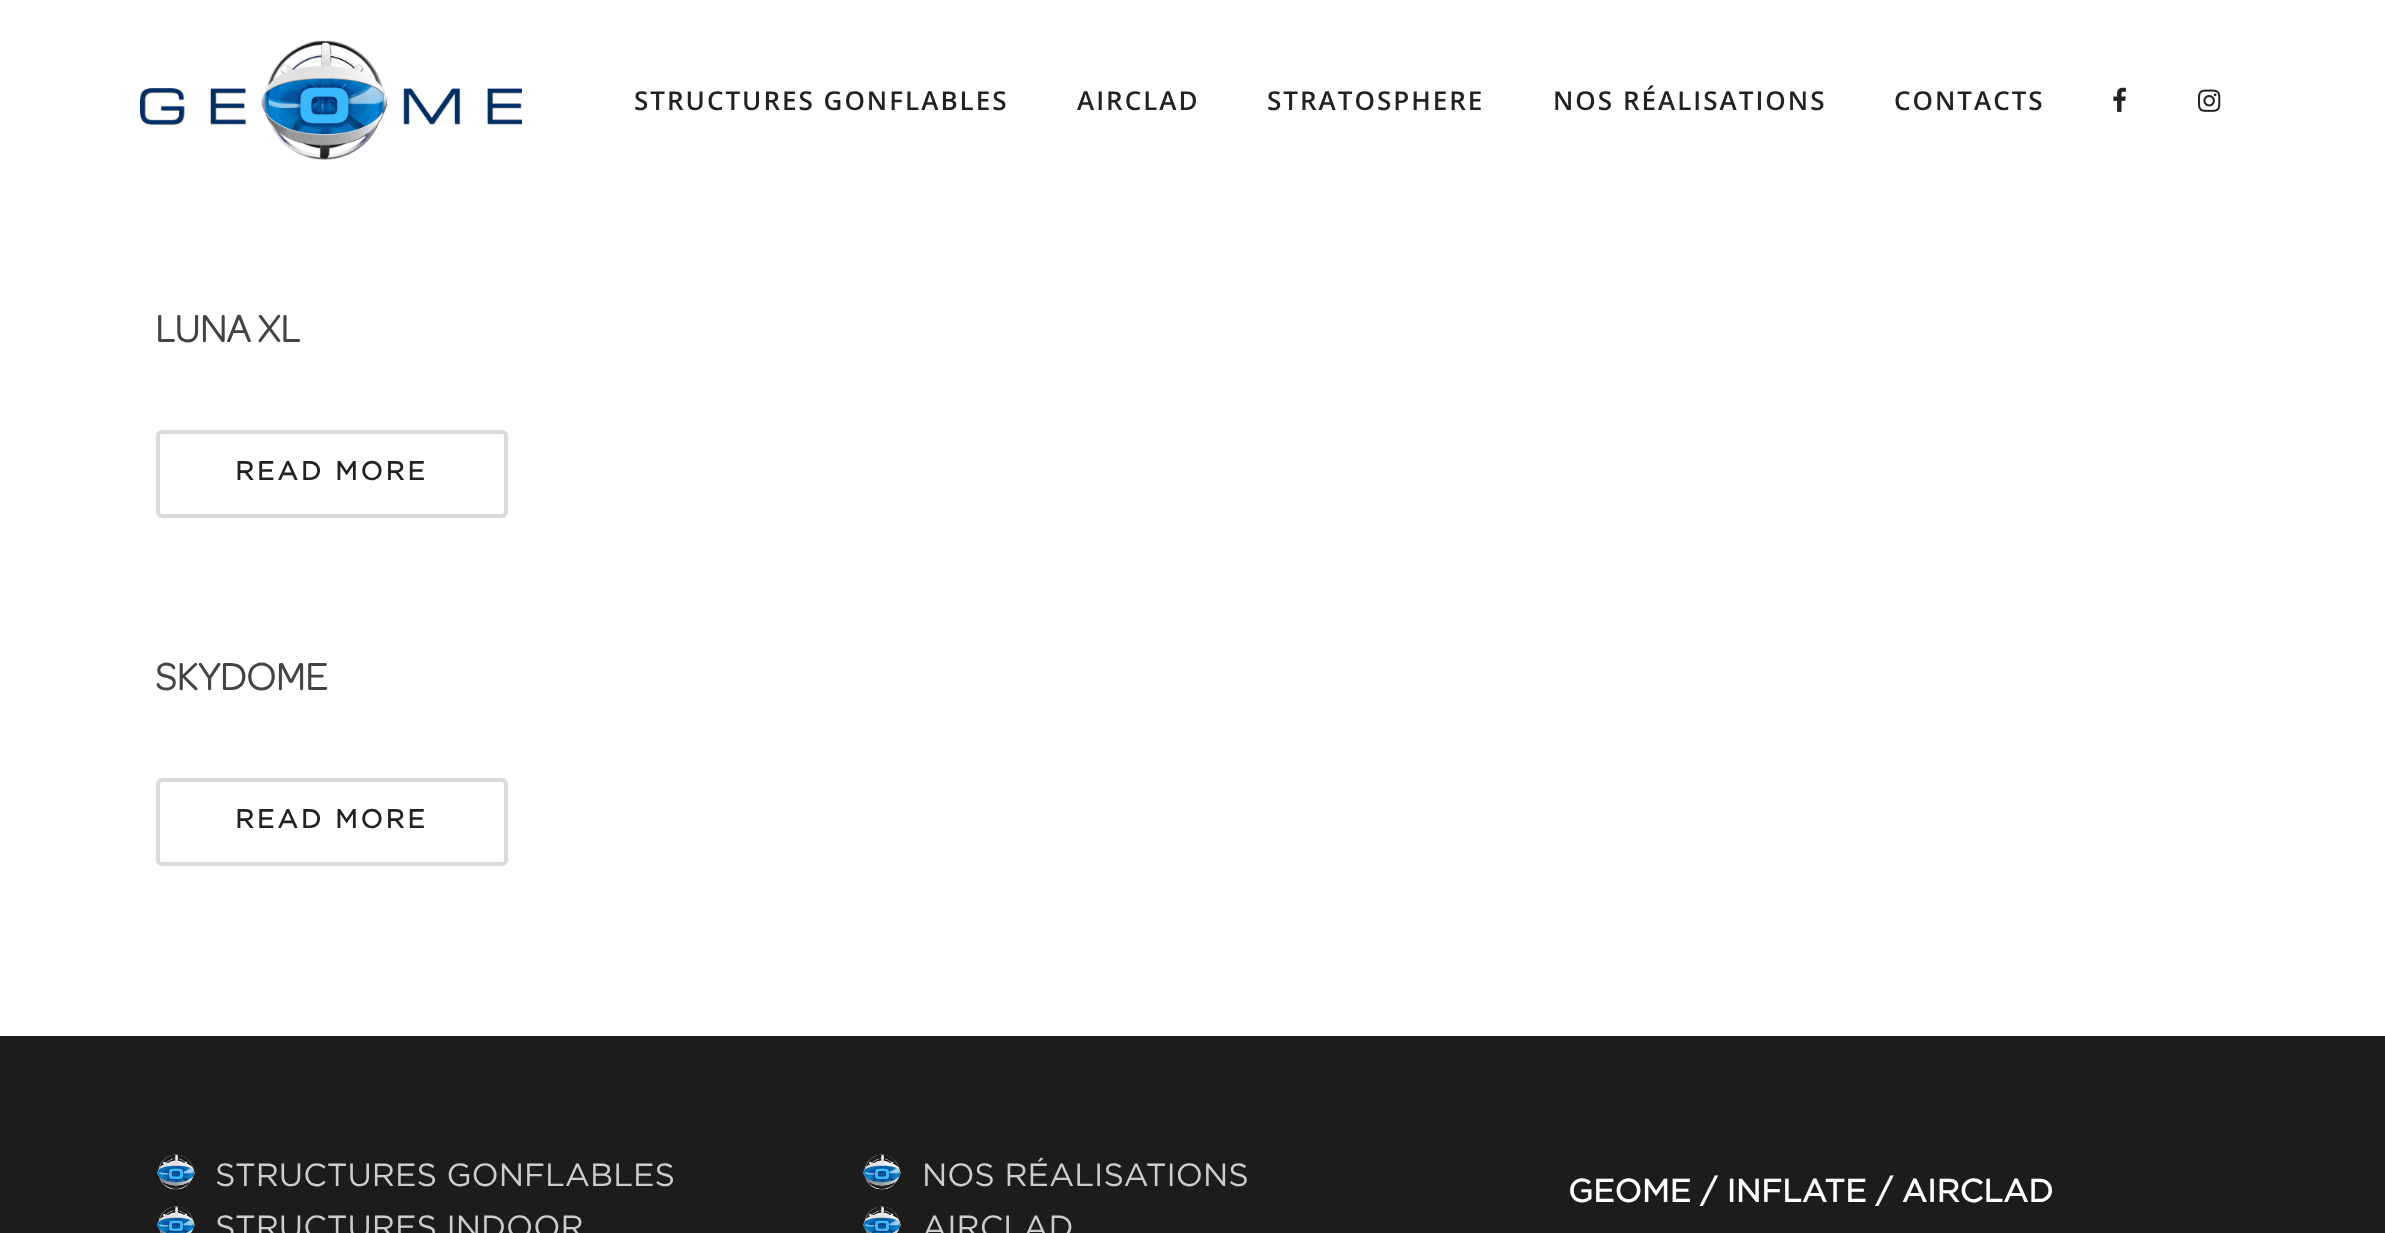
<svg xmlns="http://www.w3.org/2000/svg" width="2385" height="1233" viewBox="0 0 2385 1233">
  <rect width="100%" height="100%" fill="#ffffff"/>
  <image x="140" y="40" width="382" height="120" href="img1.png"/>
  <text x="634" y="110" font-family="Open Sans" font-size="26" font-weight="600" letter-spacing="2" fill="#222222">STRUCTURES GONFLABLES</text>
  <text x="1077" y="110" font-family="Open Sans" font-size="26" font-weight="600" letter-spacing="2" fill="#222222">AIRCLAD</text>
  <text x="1267" y="110" font-family="Open Sans" font-size="26" font-weight="600" letter-spacing="2" fill="#222222">STRATOSPHERE</text>
  <text x="1553" y="110" font-family="Open Sans" font-size="26" font-weight="600" letter-spacing="2" fill="#222222">NOS RÉALISATIONS</text>
  <text x="1894" y="110" font-family="Open Sans" font-size="26" font-weight="600" letter-spacing="2" fill="#222222">CONTACTS</text>
  <image x="2113" y="87" width="13" height="25" href="img2.png"/>
  <image x="2198" y="89" width="23" height="23" href="img3.png"/>
  <text x="155" y="342" font-family="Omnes" font-size="40" font-weight="bold" fill="#444444">LUNA XL</text>
  <rect x="158" y="432" width="348" height="84" rx="4" fill="none" stroke="#dadada" stroke-width="4"/>
  <text x="235" y="480" font-family="Gotham" font-size="26" font-weight="bold" letter-spacing="3" fill="#222222">READ MORE</text>
  <text x="155" y="690" font-family="Omnes" font-size="40" font-weight="bold" fill="#444444">SKYDOME</text>
  <rect x="158" y="780" width="348" height="84" rx="4" fill="none" stroke="#dadada" stroke-width="4"/>
  <text x="235" y="828" font-family="Gotham" font-size="26" font-weight="bold" letter-spacing="3" fill="#222222">READ MORE</text>
  <rect x="0" y="1036" width="2385" height="197" fill="#1c1c1c"/>
  <image x="157" y="1154" width="38" height="36" href="img4.png"/>
  <text x="215" y="1186" font-family="Gotham" font-size="32" fill="#cdcdcd">STRUCTURES GONFLABLES</text>
  <image x="157" y="1206" width="38" height="27" href="img5.png"/>
  <text x="215" y="1238" font-family="Gotham" font-size="32" fill="#cdcdcd">STRUCTURES INDOOR</text>
  <image x="863" y="1154" width="38" height="36" href="img4.png"/>
  <text x="922" y="1186" font-family="Gotham" font-size="32" fill="#cdcdcd">NOS RÉALISATIONS</text>
  <image x="863" y="1206" width="38" height="27" href="img5.png"/>
  <text x="922" y="1238" font-family="Gotham" font-size="32" fill="#cdcdcd">AIRCLAD</text>
  <text x="1568" y="1202" font-family="Gotham" font-size="32" font-weight="bold" fill="#ffffff">GEOME / INFLATE / AIRCLAD</text>
</svg>
